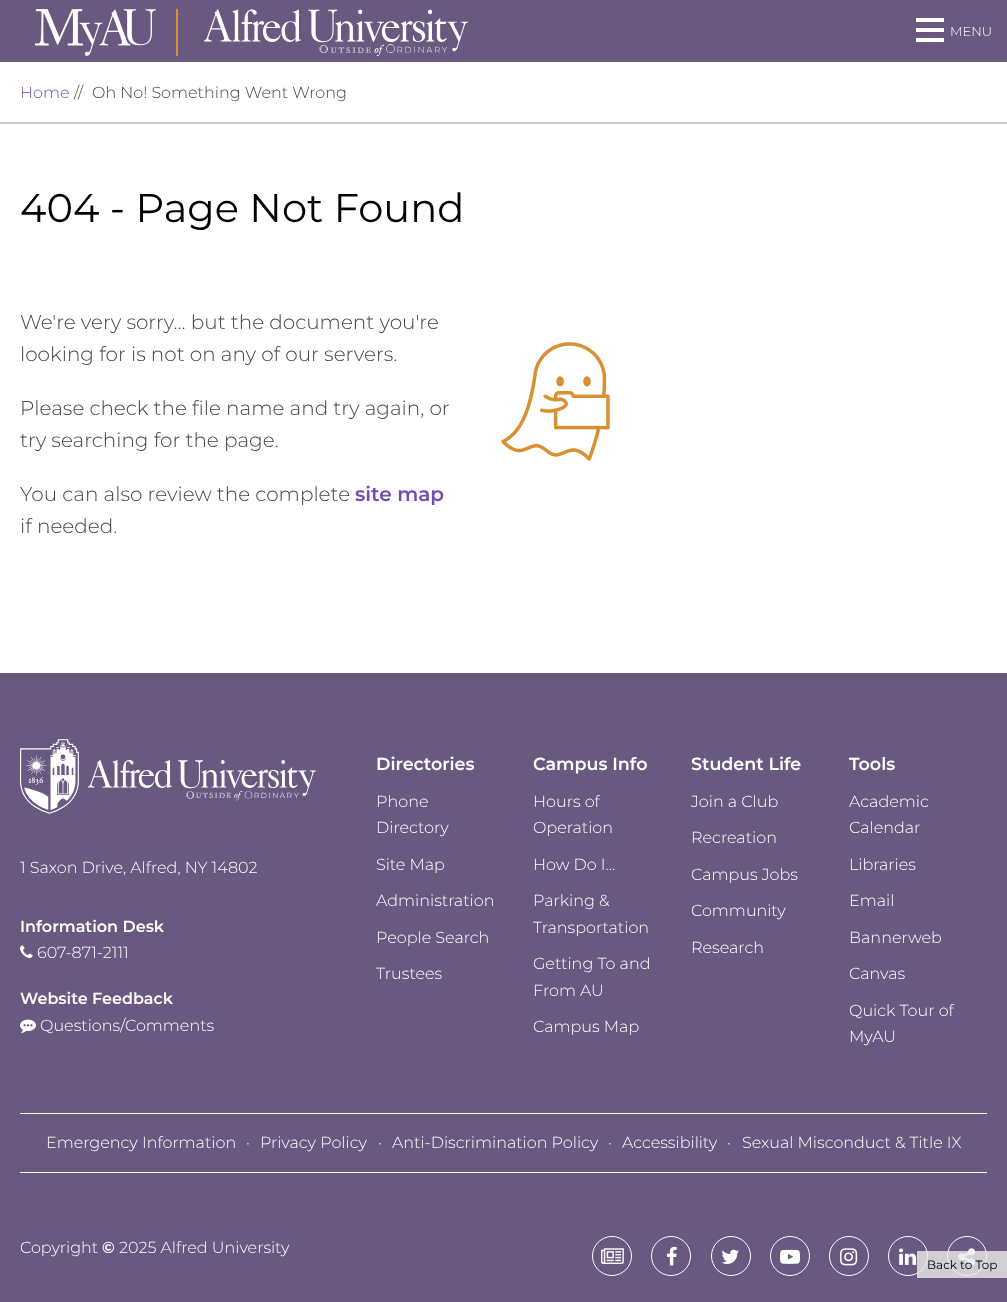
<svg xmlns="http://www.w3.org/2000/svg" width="1007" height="1302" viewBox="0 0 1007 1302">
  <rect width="100%" height="100%" fill="#ffffff"/>
  <rect x="0" y="0" width="1007" height="62" fill="#695981"/>
  <image x="35" y="9" width="121" height="47" href="img1.png"/>
  <rect x="176" y="9" width="2" height="47" fill="#d79133"/>
  <image x="204" y="9" width="264" height="47" href="img2.png"/>
  <rect x="916" y="28" width="28" height="4" fill="#ffffff"/>
  <rect x="916" y="18" width="28" height="4" fill="#ffffff"/>
  <rect x="916" y="38" width="28" height="4" fill="#ffffff"/>
  <text x="950" y="36" font-family="Montserrat" font-size="13" font-weight="300" fill="#ffffff">MENU</text>
  <rect x="0" y="122" width="1007" height="2" fill="#cccccc"/>
  <text x="20" y="98" font-family="Montserrat" font-size="16" font-weight="300" fill="#734ab0">Home</text>
  <text x="74" y="98" font-family="Montserrat" font-size="16" font-weight="300" fill="#444444">//</text>
  <text x="92" y="98" font-family="Montserrat" font-size="16" font-weight="300" fill="#444444">Oh No! Something Went Wrong</text>
  <text x="20" y="222" font-family="Montserrat" font-size="40" fill="#000000">404 - Page Not Found</text>
  <text x="20" y="329" font-family="Montserrat" font-size="20" font-weight="300" fill="#444444">We're very sorry... but the document you're</text>
  <text x="20" y="361" font-family="Montserrat" font-size="20" font-weight="300" fill="#444444">looking for is not on any of our servers.</text>
  <image x="501" y="342" width="109" height="119" href="img3.png"/>
  <text x="20" y="415" font-family="Montserrat" font-size="20" font-weight="300" fill="#444444">Please check the file name and try again, or</text>
  <text x="20" y="447" font-family="Montserrat" font-size="20" font-weight="300" fill="#444444">try searching for the page.</text>
  <text x="20" y="501" font-family="Montserrat" font-size="20" font-weight="300" fill="#444444">You can also review the complete</text>
  <text x="355" y="501" font-family="Montserrat" font-size="20" font-weight="600" fill="#734ab0">site map</text>
  <text x="20" y="533" font-family="Montserrat" font-size="20" font-weight="300" fill="#444444">if needed.</text>
  <rect x="0" y="673" width="1007" height="629" fill="#695981"/>
  <image x="20" y="739" width="296" height="75" href="img4.png"/>
  <text x="20" y="873" font-family="Montserrat" font-size="16" font-weight="300" fill="#ffffff">1 Saxon Drive, Alfred, NY 14802</text>
  <text x="20" y="932" font-family="Montserrat" font-size="16" font-weight="600" fill="#ffffff">Information Desk</text>
  <image x="20" y="945" width="13" height="13" href="img5.png"/>
  <text x="37" y="958" font-family="Montserrat" font-size="16" font-weight="300" fill="#ffffff">607-871-2111</text>
  <text x="20" y="1004" font-family="Montserrat" font-size="16" font-weight="600" fill="#ffffff">Website Feedback</text>
  <image x="20" y="1019" width="16" height="14" href="img6.png"/>
  <text x="40" y="1031" font-family="Montserrat" font-size="16" font-weight="300" fill="#ffffff">Questions/Comments</text>
  <text x="376" y="770" font-family="Montserrat" font-size="17.5" font-weight="600" fill="#ffffff">Directories</text>
  <text x="376" y="807" font-family="Montserrat" font-size="16" font-weight="300" fill="#ffffff">Phone</text>
  <text x="376" y="833" font-family="Montserrat" font-size="16" font-weight="300" fill="#ffffff">Directory</text>
  <text x="376" y="870" font-family="Montserrat" font-size="16" font-weight="300" fill="#ffffff">Site Map</text>
  <text x="376" y="906" font-family="Montserrat" font-size="16" font-weight="300" fill="#ffffff">Administration</text>
  <text x="376" y="943" font-family="Montserrat" font-size="16" font-weight="300" fill="#ffffff">People Search</text>
  <text x="376" y="979" font-family="Montserrat" font-size="16" font-weight="300" fill="#ffffff">Trustees</text>
  <text x="533" y="770" font-family="Montserrat" font-size="17.5" font-weight="600" fill="#ffffff">Campus Info</text>
  <text x="533" y="807" font-family="Montserrat" font-size="16" font-weight="300" fill="#ffffff">Hours of</text>
  <text x="533" y="833" font-family="Montserrat" font-size="16" font-weight="300" fill="#ffffff">Operation</text>
  <text x="533" y="870" font-family="Montserrat" font-size="16" font-weight="300" fill="#ffffff">How Do I...</text>
  <text x="533" y="906" font-family="Montserrat" font-size="16" font-weight="300" fill="#ffffff">Parking &amp;</text>
  <text x="533" y="933" font-family="Montserrat" font-size="16" font-weight="300" fill="#ffffff">Transportation</text>
  <text x="533" y="969" font-family="Montserrat" font-size="16" font-weight="300" fill="#ffffff">Getting To and</text>
  <text x="533" y="996" font-family="Montserrat" font-size="16" font-weight="300" fill="#ffffff">From AU</text>
  <text x="533" y="1032" font-family="Montserrat" font-size="16" font-weight="300" fill="#ffffff">Campus Map</text>
  <text x="691" y="770" font-family="Montserrat" font-size="17.5" font-weight="600" fill="#ffffff">Student Life</text>
  <text x="691" y="807" font-family="Montserrat" font-size="16" font-weight="300" fill="#ffffff">Join a Club</text>
  <text x="691" y="843" font-family="Montserrat" font-size="16" font-weight="300" fill="#ffffff">Recreation</text>
  <text x="691" y="880" font-family="Montserrat" font-size="16" font-weight="300" fill="#ffffff">Campus Jobs</text>
  <text x="691" y="916" font-family="Montserrat" font-size="16" font-weight="300" fill="#ffffff">Community</text>
  <text x="691" y="953" font-family="Montserrat" font-size="16" font-weight="300" fill="#ffffff">Research</text>
  <text x="849" y="770" font-family="Montserrat" font-size="17.5" font-weight="600" fill="#ffffff">Tools</text>
  <text x="849" y="807" font-family="Montserrat" font-size="16" font-weight="300" fill="#ffffff">Academic</text>
  <text x="849" y="833" font-family="Montserrat" font-size="16" font-weight="300" fill="#ffffff">Calendar</text>
  <text x="849" y="870" font-family="Montserrat" font-size="16" font-weight="300" fill="#ffffff">Libraries</text>
  <text x="849" y="906" font-family="Montserrat" font-size="16" font-weight="300" fill="#ffffff">Email</text>
  <text x="849" y="943" font-family="Montserrat" font-size="16" font-weight="300" fill="#ffffff">Bannerweb</text>
  <text x="849" y="979" font-family="Montserrat" font-size="16" font-weight="300" fill="#ffffff">Canvas</text>
  <text x="849" y="1016" font-family="Montserrat" font-size="16" font-weight="300" fill="#ffffff">Quick Tour of</text>
  <text x="849" y="1042" font-family="Montserrat" font-size="16" font-weight="300" fill="#ffffff">MyAU</text>
  <rect x="20" y="1113" width="967" height="1" fill="#ffffff"/>
  <rect x="20" y="1172" width="967" height="1" fill="#ffffff"/>
  <text x="46" y="1148" font-family="Montserrat" font-size="16" font-weight="300" fill="#ffffff">Emergency Information</text>
  <text x="246" y="1148" font-family="Montserrat" font-size="16" font-weight="300" fill="#ffffff">·</text>
  <text x="260" y="1148" font-family="Montserrat" font-size="16" font-weight="300" fill="#ffffff">Privacy Policy</text>
  <text x="378" y="1148" font-family="Montserrat" font-size="16" font-weight="300" fill="#ffffff">·</text>
  <text x="392" y="1148" font-family="Montserrat" font-size="16" font-weight="300" fill="#ffffff">Anti-Discrimination Policy</text>
  <text x="608" y="1148" font-family="Montserrat" font-size="16" font-weight="300" fill="#ffffff">·</text>
  <text x="622" y="1148" font-family="Montserrat" font-size="16" font-weight="300" fill="#ffffff">Accessibility</text>
  <text x="727" y="1148" font-family="Montserrat" font-size="16" font-weight="300" fill="#ffffff">·</text>
  <text x="742" y="1148" font-family="Montserrat" font-size="16" font-weight="300" fill="#ffffff">Sexual Misconduct &amp; Title IX</text>
  <text x="20" y="1253" font-family="Montserrat" font-size="16" font-weight="300" fill="#ffffff">Copyright</text>
  <text x="102" y="1253" font-family="Montserrat" font-size="16" font-weight="600" fill="#ffffff">©</text>
  <text x="119" y="1253" font-family="Montserrat" font-size="16" font-weight="300" fill="#ffffff">2025 Alfred University</text>
  <circle cx="612" cy="1256" r="19.5" fill="none" stroke="#ffffff"/>
  <image x="601" y="1248" width="23" height="16" href="img7.png"/>
  <circle cx="671" cy="1256" r="19.5" fill="none" stroke="#ffffff"/>
  <image x="667" y="1246" width="10" height="20" href="img8.png"/>
  <circle cx="731" cy="1256" r="19.5" fill="none" stroke="#ffffff"/>
  <image x="721" y="1249" width="18" height="15" href="img9.png"/>
  <circle cx="790" cy="1256" r="19.5" fill="none" stroke="#ffffff"/>
  <image x="780" y="1249" width="20" height="15" href="img10.png"/>
  <circle cx="849" cy="1256" r="19.5" fill="none" stroke="#ffffff"/>
  <image x="840" y="1248" width="18" height="18" href="img11.png"/>
  <circle cx="908" cy="1256" r="19.5" fill="none" stroke="#ffffff"/>
  <image x="899" y="1248" width="18" height="17" href="img12.png"/>
  <circle cx="967" cy="1256" r="19.5" fill="none" stroke="#ffffff"/>
  <image x="958" y="1248" width="18" height="18" href="img13.png"/>
  <rect x="917" y="1251" width="90" height="27" fill="#ebebeb" fill-opacity="0.8"/>
  <text x="927" y="1269" font-family="Montserrat" font-size="12" fill="#000000">Back to Top</text>
</svg>
